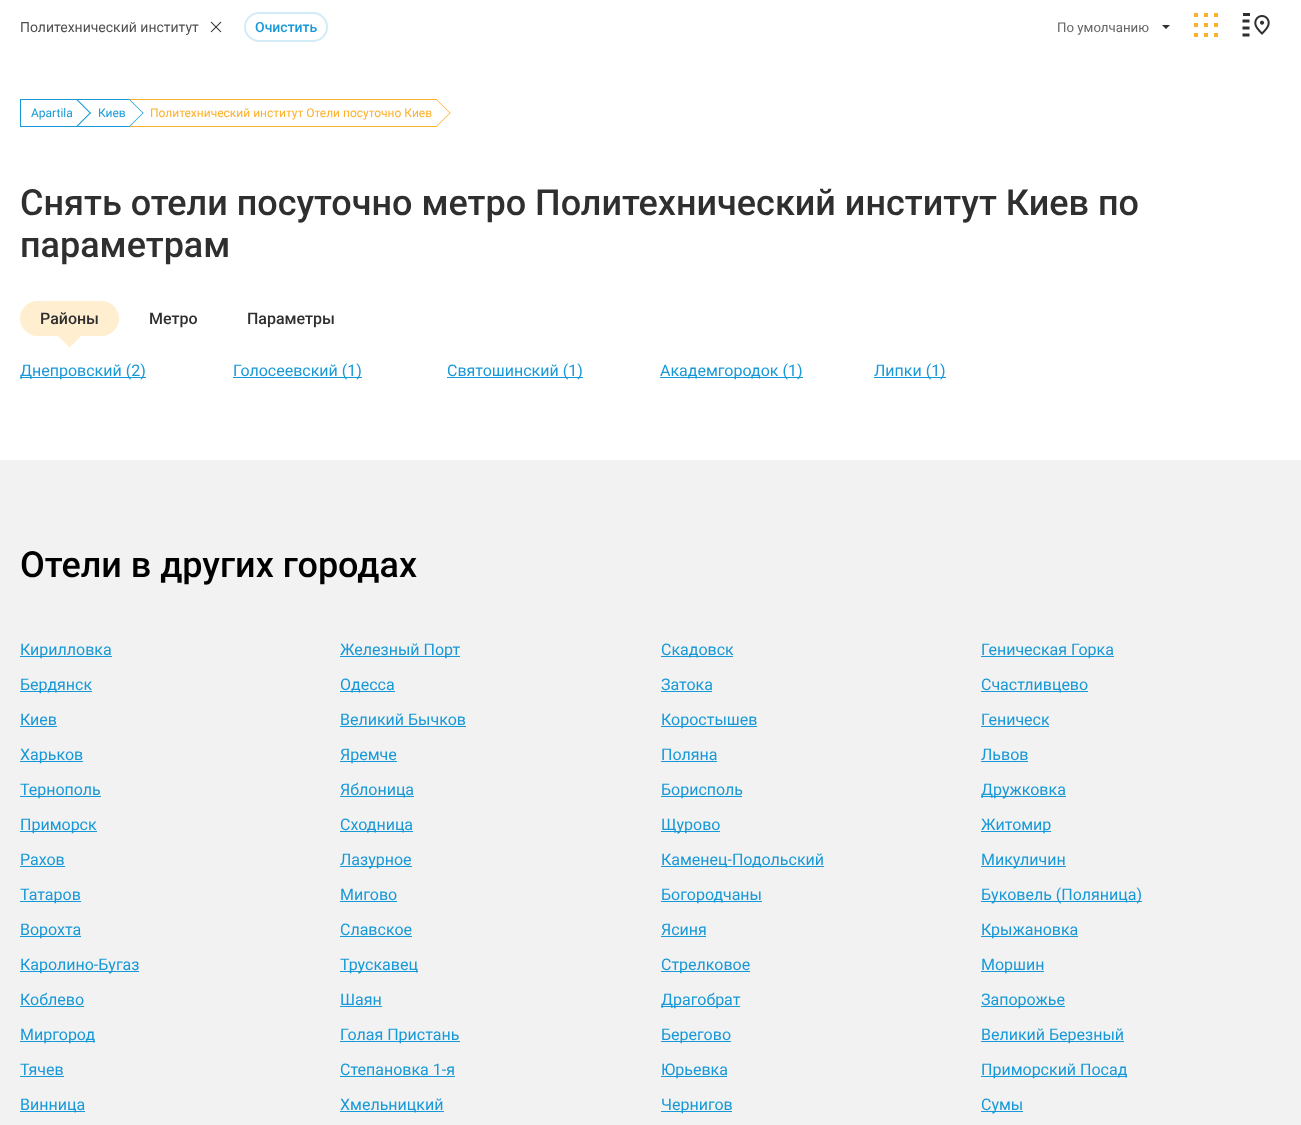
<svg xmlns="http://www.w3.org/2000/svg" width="1301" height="1125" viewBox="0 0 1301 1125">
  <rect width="100%" height="100%" fill="#ffffff"/>
  <image x="210" y="21" width="12" height="12" href="img1.png"/>
  <text x="20" y="32" font-family="Roboto" font-size="14" fill="#4f4f4f">Политехнический институт</text>
  <rect x="245" y="13" width="82" height="28" rx="14" fill="none" stroke="#d1ebf7" stroke-width="2"/>
  <text x="255" y="32" font-family="Roboto" font-size="14" font-weight="500" fill="#1899d7">Очистить</text>
  <path d="M1162 25L1166 29L1170 25Z" fill="#2f2f2f"/>
  <text x="1057" y="32" font-family="Roboto" font-size="13.25" fill="#646464">По умолчанию</text>
  <image x="1194" y="13" width="24" height="24" href="img2.png"/>
  <image x="1242" y="13" width="28" height="24" href="img3.png"/>
  <rect x="20" y="99" width="109" height="1" fill="#1899d7"/>
  <rect x="20" y="126" width="109" height="1" fill="#1899d7"/>
  <rect x="20" y="99" width="1" height="28" fill="#1899d7"/>
  <rect x="77" y="99" width="1" height="28" fill="#1899d7"/>
  <rect x="77" y="100" width="1" height="26" fill="#ffffff"/>
  <path d="M91 113L77 127L76 126.5L90 112.5Z" fill="#1899d7"/>
  <path d="M91 113L90 113.5L76 99.5L77 99Z" fill="#1899d7"/>
  <text x="31" y="117" font-family="Roboto" font-size="12" fill="#1899d7">Apartila</text>
  <rect x="129" y="99" width="308" height="1" fill="#fdb02b"/>
  <rect x="129" y="126" width="308" height="1" fill="#fdb02b"/>
  <rect x="129" y="99" width="1" height="28" fill="#fdb02b"/>
  <rect x="129" y="100" width="1" height="26" fill="#ffffff"/>
  <path d="M143.5 113L129.5 127L129 126.5L143 112.5Z" fill="#1899d7"/>
  <path d="M143.5 113L143 113.5L129 99.5L129.5 99Z" fill="#1899d7"/>
  <text x="98" y="117" font-family="Roboto" font-size="12" fill="#1899d7">Киев</text>
  <text x="150" y="117" font-family="Roboto" font-size="12" fill="#fdb02b">Политехнический институт Отели посуточно Киев</text>
  <path d="M450.5 113L436.5 127L436 126.5L450 112.5Z" fill="#fdb02b"/>
  <path d="M450.5 113L450 113.5L436 99.5L436.5 99Z" fill="#fdb02b"/>
  <text x="20" y="215" font-family="Roboto" font-size="36" font-weight="500" fill="#2f2f2f">Снять отели посуточно метро Политехнический институт Киев по</text>
  <text x="20" y="257" font-family="Roboto" font-size="36" font-weight="500" fill="#2f2f2f">параметрам</text>
  <rect x="20" y="301" width="99" height="35" rx="17.5" fill="#ffeed0"/>
  <text x="40" y="324" font-family="Roboto" font-size="16" font-weight="500" fill="#2f2f2f">Районы</text>
  <path d="M69.5 322.5L82 335L69.5 347.5L57 335Z" fill="#ffeed0"/>
  <text x="149" y="324" font-family="Roboto" font-size="16" font-weight="500" fill="#2f2f2f">Метро</text>
  <text x="247" y="324" font-family="Roboto" font-size="16" font-weight="500" fill="#2f2f2f">Параметры</text>
  <rect x="20" y="377" width="126" height="1" fill="#1899d7"/>
  <text x="20" y="376" font-family="Roboto" font-size="16" fill="#1899d7">Днепровский (2)</text>
  <rect x="233" y="377" width="129" height="1" fill="#1899d7"/>
  <text x="233" y="376" font-family="Roboto" font-size="16" fill="#1899d7">Голосеевский (1)</text>
  <rect x="447" y="377" width="136" height="1" fill="#1899d7"/>
  <text x="447" y="376" font-family="Roboto" font-size="16" fill="#1899d7">Святошинский (1)</text>
  <rect x="660" y="377" width="143" height="1" fill="#1899d7"/>
  <text x="660" y="376" font-family="Roboto" font-size="16" fill="#1899d7">Академгородок (1)</text>
  <rect x="874" y="377" width="72" height="1" fill="#1899d7"/>
  <text x="874" y="376" font-family="Roboto" font-size="16" fill="#1899d7">Липки (1)</text>
  <rect x="0" y="460" width="1301" height="665" fill="#f2f2f2"/>
  <text x="20" y="577" font-family="Roboto" font-size="36" font-weight="500" fill="#000000">Отели в других городах</text>
  <rect x="20" y="656" width="92" height="1" fill="#1899d7"/>
  <text x="20" y="655" font-family="Roboto" font-size="16" fill="#1899d7">Кирилловка</text>
  <rect x="340" y="656" width="120" height="1" fill="#1899d7"/>
  <text x="340" y="655" font-family="Roboto" font-size="16" fill="#1899d7">Железный Порт</text>
  <rect x="661" y="656" width="72" height="1" fill="#1899d7"/>
  <text x="661" y="655" font-family="Roboto" font-size="16" fill="#1899d7">Скадовск</text>
  <rect x="981" y="656" width="133" height="1" fill="#1899d7"/>
  <text x="981" y="655" font-family="Roboto" font-size="16" fill="#1899d7">Геническая Горка</text>
  <rect x="20" y="691" width="72" height="1" fill="#1899d7"/>
  <text x="20" y="690" font-family="Roboto" font-size="16" fill="#1899d7">Бердянск</text>
  <rect x="340" y="691" width="55" height="1" fill="#1899d7"/>
  <text x="340" y="690" font-family="Roboto" font-size="16" fill="#1899d7">Одесса</text>
  <text x="661" y="690" font-family="Roboto" font-size="16" fill="#1899d7">Затока</text>
  <rect x="661" y="691" width="51" height="1" fill="#1899d7"/>
  <rect x="981" y="691" width="107" height="1" fill="#1899d7"/>
  <text x="981" y="690" font-family="Roboto" font-size="16" fill="#1899d7">Счастливцево</text>
  <text x="20" y="725" font-family="Roboto" font-size="16" fill="#1899d7">Киев</text>
  <rect x="20" y="726" width="37" height="1" fill="#1899d7"/>
  <text x="340" y="725" font-family="Roboto" font-size="16" fill="#1899d7">Великий Бычков</text>
  <rect x="340" y="726" width="126" height="1" fill="#1899d7"/>
  <rect x="661" y="726" width="96" height="1" fill="#1899d7"/>
  <text x="661" y="725" font-family="Roboto" font-size="16" fill="#1899d7">Коростышев</text>
  <text x="981" y="725" font-family="Roboto" font-size="16" fill="#1899d7">Геническ</text>
  <rect x="981" y="726" width="68" height="1" fill="#1899d7"/>
  <rect x="20" y="761" width="63" height="1" fill="#1899d7"/>
  <text x="20" y="760" font-family="Roboto" font-size="16" fill="#1899d7">Харьков</text>
  <rect x="340" y="761" width="57" height="1" fill="#1899d7"/>
  <text x="340" y="760" font-family="Roboto" font-size="16" fill="#1899d7">Яремче</text>
  <text x="661" y="760" font-family="Roboto" font-size="16" fill="#1899d7">Поляна</text>
  <rect x="661" y="761" width="56" height="1" fill="#1899d7"/>
  <text x="981" y="760" font-family="Roboto" font-size="16" fill="#1899d7">Львов</text>
  <rect x="981" y="761" width="47" height="1" fill="#1899d7"/>
  <rect x="20" y="796" width="81" height="1" fill="#1899d7"/>
  <text x="20" y="795" font-family="Roboto" font-size="16" fill="#1899d7">Тернополь</text>
  <rect x="340" y="796" width="74" height="1" fill="#1899d7"/>
  <text x="340" y="795" font-family="Roboto" font-size="16" fill="#1899d7">Яблоница</text>
  <rect x="661" y="796" width="81" height="1" fill="#1899d7"/>
  <text x="661" y="795" font-family="Roboto" font-size="16" fill="#1899d7">Борисполь</text>
  <rect x="981" y="796" width="85" height="1" fill="#1899d7"/>
  <text x="981" y="795" font-family="Roboto" font-size="16" fill="#1899d7">Дружковка</text>
  <rect x="20" y="831" width="77" height="1" fill="#1899d7"/>
  <text x="20" y="830" font-family="Roboto" font-size="16" fill="#1899d7">Приморск</text>
  <rect x="340" y="831" width="73" height="1" fill="#1899d7"/>
  <text x="340" y="830" font-family="Roboto" font-size="16" fill="#1899d7">Сходница</text>
  <rect x="661" y="831" width="59" height="1" fill="#1899d7"/>
  <text x="661" y="830" font-family="Roboto" font-size="16" fill="#1899d7">Щурово</text>
  <rect x="981" y="831" width="70" height="1" fill="#1899d7"/>
  <text x="981" y="830" font-family="Roboto" font-size="16" fill="#1899d7">Житомир</text>
  <text x="20" y="865" font-family="Roboto" font-size="16" fill="#1899d7">Рахов</text>
  <rect x="20" y="866" width="45" height="1" fill="#1899d7"/>
  <rect x="340" y="866" width="72" height="1" fill="#1899d7"/>
  <text x="340" y="865" font-family="Roboto" font-size="16" fill="#1899d7">Лазурное</text>
  <rect x="661" y="866" width="163" height="1" fill="#1899d7"/>
  <text x="661" y="865" font-family="Roboto" font-size="16" fill="#1899d7">Каменец-Подольский</text>
  <rect x="981" y="866" width="85" height="1" fill="#1899d7"/>
  <text x="981" y="865" font-family="Roboto" font-size="16" fill="#1899d7">Микуличин</text>
  <rect x="20" y="901" width="61" height="1" fill="#1899d7"/>
  <text x="20" y="900" font-family="Roboto" font-size="16" fill="#1899d7">Татаров</text>
  <text x="340" y="900" font-family="Roboto" font-size="16" fill="#1899d7">Мигово</text>
  <rect x="340" y="901" width="57" height="1" fill="#1899d7"/>
  <rect x="661" y="901" width="101" height="1" fill="#1899d7"/>
  <text x="661" y="900" font-family="Roboto" font-size="16" fill="#1899d7">Богородчаны</text>
  <rect x="981" y="901" width="161" height="1" fill="#1899d7"/>
  <text x="981" y="900" font-family="Roboto" font-size="16" fill="#1899d7">Буковель (Поляница)</text>
  <rect x="20" y="936" width="61" height="1" fill="#1899d7"/>
  <text x="20" y="935" font-family="Roboto" font-size="16" fill="#1899d7">Ворохта</text>
  <text x="340" y="935" font-family="Roboto" font-size="16" fill="#1899d7">Славское</text>
  <rect x="340" y="936" width="72" height="1" fill="#1899d7"/>
  <text x="661" y="935" font-family="Roboto" font-size="16" fill="#1899d7">Ясиня</text>
  <rect x="661" y="936" width="45" height="1" fill="#1899d7"/>
  <rect x="981" y="936" width="97" height="1" fill="#1899d7"/>
  <text x="981" y="935" font-family="Roboto" font-size="16" fill="#1899d7">Крыжановка</text>
  <rect x="20" y="971" width="119" height="1" fill="#1899d7"/>
  <text x="20" y="970" font-family="Roboto" font-size="16" fill="#1899d7">Каролино-Бугаз</text>
  <rect x="340" y="971" width="78" height="1" fill="#1899d7"/>
  <text x="340" y="970" font-family="Roboto" font-size="16" fill="#1899d7">Трускавец</text>
  <rect x="661" y="971" width="89" height="1" fill="#1899d7"/>
  <text x="661" y="970" font-family="Roboto" font-size="16" fill="#1899d7">Стрелковое</text>
  <rect x="981" y="971" width="63" height="1" fill="#1899d7"/>
  <text x="981" y="970" font-family="Roboto" font-size="16" fill="#1899d7">Моршин</text>
  <text x="20" y="1005" font-family="Roboto" font-size="16" fill="#1899d7">Коблево</text>
  <rect x="20" y="1006" width="64" height="1" fill="#1899d7"/>
  <text x="340" y="1005" font-family="Roboto" font-size="16" fill="#1899d7">Шаян</text>
  <rect x="340" y="1006" width="42" height="1" fill="#1899d7"/>
  <rect x="661" y="1006" width="79" height="1" fill="#1899d7"/>
  <text x="661" y="1005" font-family="Roboto" font-size="16" fill="#1899d7">Драгобрат</text>
  <rect x="981" y="1006" width="84" height="1" fill="#1899d7"/>
  <text x="981" y="1005" font-family="Roboto" font-size="16" fill="#1899d7">Запорожье</text>
  <rect x="20" y="1041" width="75" height="1" fill="#1899d7"/>
  <text x="20" y="1040" font-family="Roboto" font-size="16" fill="#1899d7">Миргород</text>
  <rect x="340" y="1041" width="120" height="1" fill="#1899d7"/>
  <text x="340" y="1040" font-family="Roboto" font-size="16" fill="#1899d7">Голая Пристань</text>
  <rect x="661" y="1041" width="70" height="1" fill="#1899d7"/>
  <text x="661" y="1040" font-family="Roboto" font-size="16" fill="#1899d7">Берегово</text>
  <rect x="981" y="1041" width="143" height="1" fill="#1899d7"/>
  <text x="981" y="1040" font-family="Roboto" font-size="16" fill="#1899d7">Великий Березный</text>
  <text x="20" y="1075" font-family="Roboto" font-size="16" fill="#1899d7">Тячев</text>
  <rect x="20" y="1076" width="44" height="1" fill="#1899d7"/>
  <text x="340" y="1075" font-family="Roboto" font-size="16" fill="#1899d7">Степановка 1-я</text>
  <rect x="340" y="1076" width="115" height="1" fill="#1899d7"/>
  <rect x="661" y="1076" width="66" height="1" fill="#1899d7"/>
  <text x="661" y="1075" font-family="Roboto" font-size="16" fill="#1899d7">Юрьевка</text>
  <rect x="981" y="1076" width="146" height="1" fill="#1899d7"/>
  <text x="981" y="1075" font-family="Roboto" font-size="16" fill="#1899d7">Приморский Посад</text>
  <rect x="20" y="1111" width="65" height="1" fill="#1899d7"/>
  <text x="20" y="1110" font-family="Roboto" font-size="16" fill="#1899d7">Винница</text>
  <rect x="340" y="1111" width="104" height="1" fill="#1899d7"/>
  <text x="340" y="1110" font-family="Roboto" font-size="16" fill="#1899d7">Хмельницкий</text>
  <rect x="661" y="1111" width="71" height="1" fill="#1899d7"/>
  <text x="661" y="1110" font-family="Roboto" font-size="16" fill="#1899d7">Чернигов</text>
  <rect x="981" y="1111" width="42" height="1" fill="#1899d7"/>
  <text x="981" y="1110" font-family="Roboto" font-size="16" fill="#1899d7">Сумы</text>
</svg>
